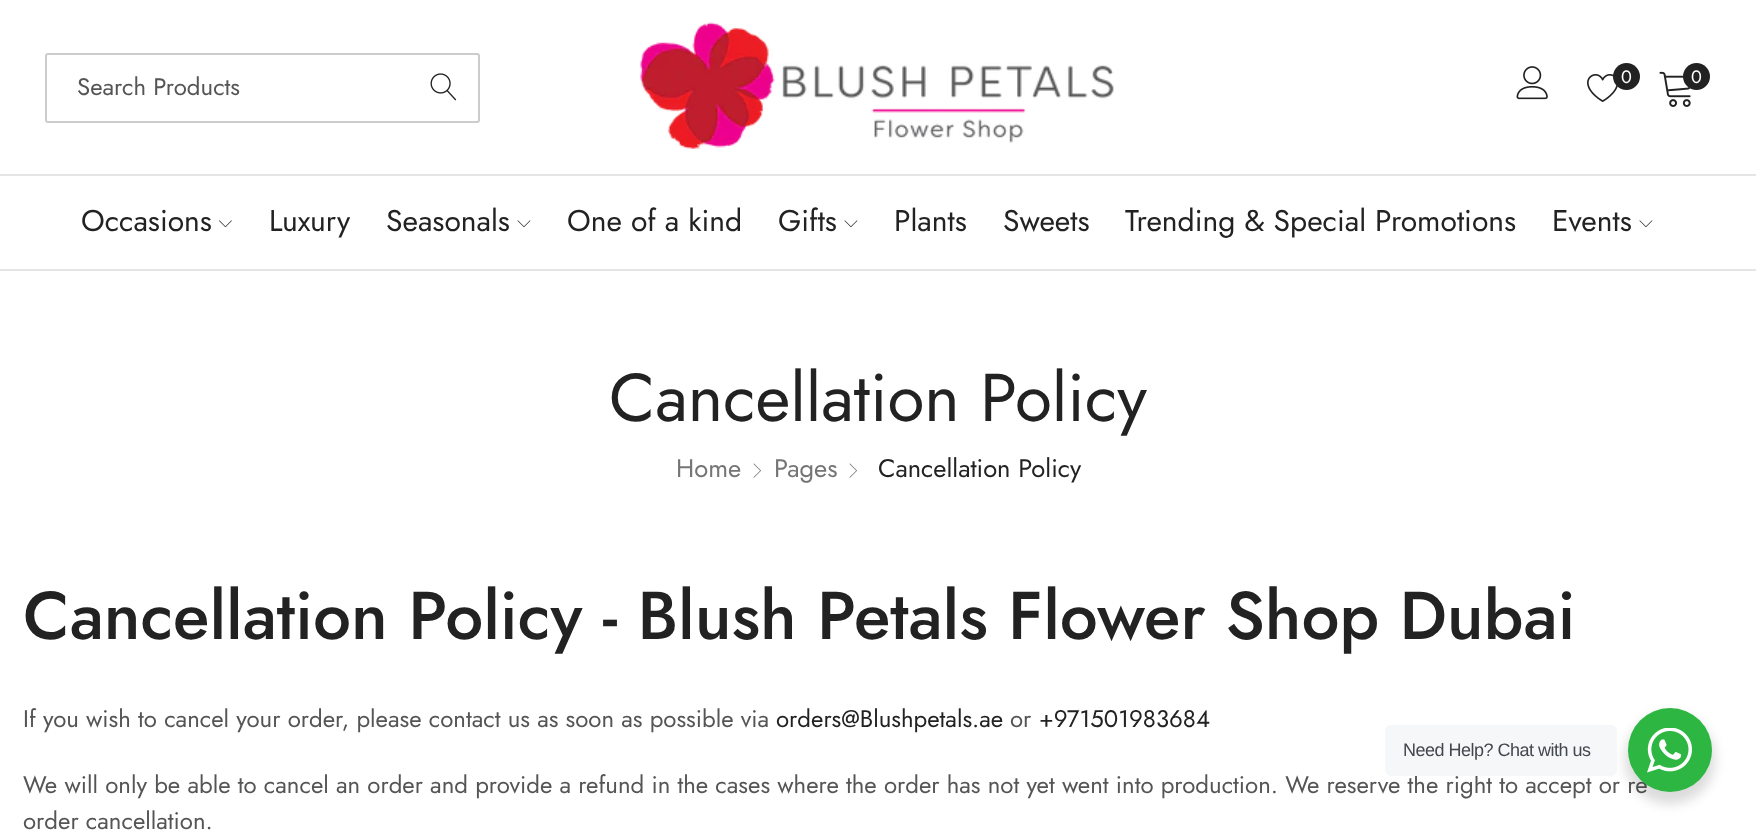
<svg xmlns="http://www.w3.org/2000/svg" width="1756" height="837" viewBox="0 0 1756 837">
  <defs>
    <filter id="blur1" x="-50%" y="-200%" width="200%" height="500%"><feGaussianBlur stdDeviation="6"/></filter>
  </defs>
  <rect width="100%" height="100%" fill="#ffffff"/>
  <rect x="0" y="269" width="1756" height="2" fill="#e5e5e5"/>
  <rect x="46" y="54" width="433" height="68" rx="2" fill="none" stroke="#cccccc" stroke-width="2"/>
  <text x="77" y="95" font-family="Jost" font-size="24" fill="#555555">Search Products</text>
  <image x="430" y="73" width="27" height="28" href="img1.png"/>
  <image x="640" y="22" width="474" height="127" href="img2.png"/>
  <image x="1516" y="66" width="32" height="34" href="img3.png"/>
  <image x="1587" y="74" width="31" height="28" href="img4.png"/>
  <circle cx="1626.5" cy="76.5" r="13.5" fill="#222222"/>
  <text x="1621" y="83" font-family="Jost" font-size="18" fill="#ffffff">0</text>
  <image x="1659" y="71" width="32" height="36" href="img5.png"/>
  <circle cx="1696.5" cy="76.5" r="13.5" fill="#222222"/>
  <text x="1691" y="83" font-family="Jost" font-size="18" fill="#ffffff">0</text>
  <rect x="0" y="174" width="1756" height="2" fill="#e5e5e5"/>
  <text x="81" y="231" font-family="Jost" font-size="30" fill="#222222">Occasions</text>
  <image x="219" y="220" width="13" height="8" href="img6.png"/>
  <text x="269" y="231" font-family="Jost" font-size="30" fill="#222222">Luxury</text>
  <text x="386" y="231" font-family="Jost" font-size="30" fill="#222222">Seasonals</text>
  <image x="517" y="220" width="14" height="8" href="img7.png"/>
  <text x="567" y="231" font-family="Jost" font-size="30" fill="#222222">One of a kind</text>
  <text x="778" y="231" font-family="Jost" font-size="30" fill="#222222">Gifts</text>
  <image x="844" y="220" width="14" height="8" href="img7.png"/>
  <text x="894" y="231" font-family="Jost" font-size="30" fill="#222222">Plants</text>
  <text x="1003" y="231" font-family="Jost" font-size="30" fill="#222222">Sweets</text>
  <text x="1125" y="231" font-family="Jost" font-size="30" fill="#222222">Trending &amp; Special Promotions</text>
  <text x="1552" y="231" font-family="Jost" font-size="30" fill="#222222">Events</text>
  <image x="1639" y="220" width="14" height="8" href="img7.png"/>
  <text x="609" y="421" font-family="Jost" font-size="67.5" fill="#222222">Cancellation Policy</text>
  <text x="676" y="477" font-family="Jost" font-size="25.5" fill="#757575">Home</text>
  <image x="753" y="463" width="8" height="15" href="img8.png"/>
  <text x="774" y="477" font-family="Jost" font-size="25.5" fill="#757575">Pages</text>
  <image x="849" y="463" width="8" height="15" href="img8.png"/>
  <text x="878" y="477" font-family="Jost" font-size="25.5" fill="#222222">Cancellation Policy</text>
  <text x="23" y="639" font-family="Jost" font-size="67.5" font-weight="500" fill="#222222">Cancellation Policy - Blush Petals Flower Shop Dubai</text>
  <text x="23" y="727" font-family="Jost" font-size="24" fill="#555555">If you wish to cancel your order, please contact us as soon as possible via</text>
  <text x="776" y="727" font-family="Jost" font-size="24" fill="#222222">orders@Blushpetals.ae</text>
  <text x="1010" y="727" font-family="Jost" font-size="24" fill="#555555">or</text>
  <text x="1039" y="727" font-family="Jost" font-size="24" fill="#222222">+971501983684</text>
  <text x="23" y="793" font-family="Jost" font-size="24" fill="#555555">We will only be able to cancel an order and provide a refund in the cases where the order has not yet went into production. We reserve the right to accept or re</text>
  <text x="23" y="829" font-family="Jost" font-size="24" fill="#555555">order cancellation.</text>
  <rect x="1625" y="714" width="90" height="90" rx="45" fill="#000000" fill-opacity="0.14" filter="url(#blur1)"/>
  <rect x="1385" y="725" width="232" height="51" rx="6" fill="#f5f7f9"/>
  <text x="1403" y="756" font-family="Liberation Sans" font-size="18" letter-spacing="-0.5" fill="#43474e">Need Help? Chat with us</text>
  <circle cx="1670" cy="750" r="42" fill="#2db742"/>
  <image x="1647" y="728" width="45" height="45" href="img9.png"/>
</svg>
